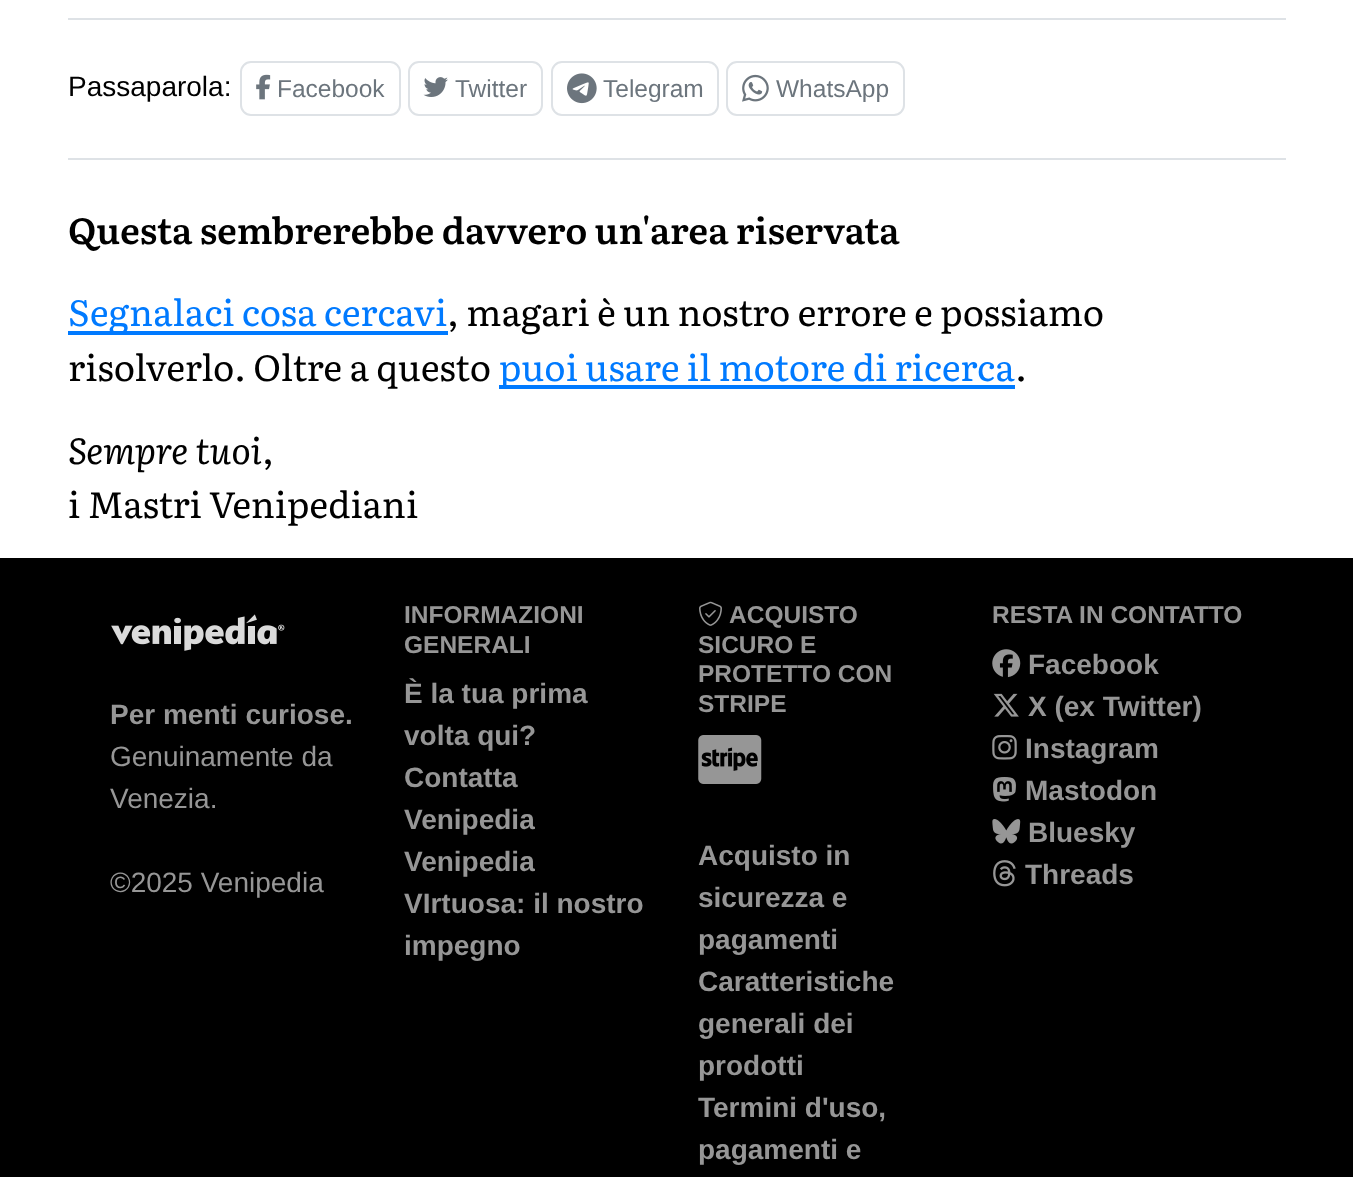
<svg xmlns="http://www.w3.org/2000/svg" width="1353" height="1177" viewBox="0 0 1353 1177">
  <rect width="100%" height="100%" fill="#ffffff"/>
  <rect x="68" y="18" width="1218" height="2" fill="#dee2e6"/>
  <rect x="68" y="158" width="1218" height="2" fill="#dee2e6"/>
  <text x="68" y="96" font-family="Liberation Sans" font-size="28" fill="#000000">Passaparola:</text>
  <rect x="241" y="62" width="159" height="53" rx="10" fill="none" stroke="#dee2e6" stroke-width="2"/>
  <image x="256" y="74" width="15" height="26" href="img1.png"/>
  <text x="277" y="97" font-family="Liberation Sans" font-size="24.5" fill="#6c757d">Facebook</text>
  <rect x="409" y="62" width="133" height="53" rx="10" fill="none" stroke="#dee2e6" stroke-width="2"/>
  <image x="423" y="77" width="25" height="20" href="img2.png"/>
  <text x="455" y="97" font-family="Liberation Sans" font-size="24.5" fill="#6c757d">Twitter</text>
  <rect x="552" y="62" width="166" height="53" rx="10" fill="none" stroke="#dee2e6" stroke-width="2"/>
  <image x="567" y="73" width="30" height="31" href="img3.png"/>
  <text x="603" y="97" font-family="Liberation Sans" font-size="24.5" fill="#6c757d">Telegram</text>
  <rect x="727" y="62" width="177" height="53" rx="10" fill="none" stroke="#dee2e6" stroke-width="2"/>
  <image x="742" y="74" width="27" height="28" href="img4.png"/>
  <text x="776" y="97" font-family="Liberation Sans" font-size="24.5" fill="#6c757d">WhatsApp</text>
  <text x="68" y="244" font-family="Literata" font-size="36.4" font-weight="600" fill="#000000">Questa sembrerebbe davvero un'area riservata</text>
  <rect x="68" y="331" width="380" height="4" fill="#007aff"/>
  <text x="68" y="326" font-family="Literata" font-size="36.4" fill="#007aff">Segnalaci cosa cercavi</text>
  <text x="447" y="326" font-family="Literata" font-size="36.4" fill="#000000">, magari è un nostro errore e possiamo</text>
  <text x="68" y="381" font-family="Literata" font-size="36.4" fill="#000000">risolverlo. Oltre a questo</text>
  <rect x="499" y="385" width="516" height="4" fill="#007aff"/>
  <text x="499" y="381" font-family="Literata" font-size="36.4" fill="#007aff">puoi usare il motore di ricerca</text>
  <text x="1015" y="381" font-family="Literata" font-size="36.4" fill="#000000">.</text>
  <text x="68" y="464" font-family="Literata" font-size="36.4" font-style="italic" fill="#000000">Sempre tuoi</text>
  <text x="262" y="464" font-family="Literata" font-size="36.4" fill="#000000">,</text>
  <text x="68" y="518" font-family="Literata" font-size="36.4" fill="#000000">i Mastri Venipediani</text>
  <rect x="0" y="558" width="1353" height="619" fill="#000000"/>
  <image x="111" y="614" width="174" height="37" href="img5.png"/>
  <text x="110" y="724" font-family="Liberation Sans" font-size="28" font-weight="bold" fill="#969696">Per menti curiose.</text>
  <text x="110" y="766" font-family="Liberation Sans" font-size="28" fill="#969696">Genuinamente da</text>
  <text x="110" y="808" font-family="Liberation Sans" font-size="28" fill="#969696">Venezia.</text>
  <text x="110" y="892" font-family="Liberation Sans" font-size="28" fill="#969696">©2025 Venipedia</text>
  <text x="404" y="623" font-family="Liberation Sans" font-size="24.5" font-weight="bold" fill="#969696">INFORMAZIONI</text>
  <text x="404" y="653" font-family="Liberation Sans" font-size="24.5" font-weight="bold" fill="#969696">GENERALI</text>
  <text x="404" y="703" font-family="Liberation Sans" font-size="28" font-weight="bold" fill="#969696">È la tua prima</text>
  <text x="404" y="745" font-family="Liberation Sans" font-size="28" font-weight="bold" fill="#969696">volta qui?</text>
  <text x="404" y="787" font-family="Liberation Sans" font-size="28" font-weight="bold" fill="#969696">Contatta</text>
  <text x="404" y="829" font-family="Liberation Sans" font-size="28" font-weight="bold" fill="#969696">Venipedia</text>
  <text x="404" y="871" font-family="Liberation Sans" font-size="28" font-weight="bold" fill="#969696">Venipedia</text>
  <text x="404" y="913" font-family="Liberation Sans" font-size="28" font-weight="bold" fill="#969696">VIrtuosa: il nostro</text>
  <text x="404" y="955" font-family="Liberation Sans" font-size="28" font-weight="bold" fill="#969696">impegno</text>
  <image x="699" y="601" width="23" height="25" href="img6.png"/>
  <text x="729" y="623" font-family="Liberation Sans" font-size="24.5" font-weight="bold" fill="#969696">ACQUISTO</text>
  <text x="698" y="653" font-family="Liberation Sans" font-size="24.5" font-weight="bold" fill="#969696">SICURO E</text>
  <text x="698" y="682" font-family="Liberation Sans" font-size="24.5" font-weight="bold" fill="#969696">PROTETTO CON</text>
  <text x="698" y="712" font-family="Liberation Sans" font-size="24.5" font-weight="bold" fill="#969696">STRIPE</text>
  <image x="698" y="735" width="64" height="49" href="img7.png"/>
  <text x="698" y="865" font-family="Liberation Sans" font-size="28" font-weight="bold" fill="#969696">Acquisto in</text>
  <text x="698" y="907" font-family="Liberation Sans" font-size="28" font-weight="bold" fill="#969696">sicurezza e</text>
  <text x="698" y="949" font-family="Liberation Sans" font-size="28" font-weight="bold" fill="#969696">pagamenti</text>
  <text x="698" y="991" font-family="Liberation Sans" font-size="28" font-weight="bold" fill="#969696">Caratteristiche</text>
  <text x="698" y="1033" font-family="Liberation Sans" font-size="28" font-weight="bold" fill="#969696">generali dei</text>
  <text x="698" y="1075" font-family="Liberation Sans" font-size="28" font-weight="bold" fill="#969696">prodotti</text>
  <text x="698" y="1117" font-family="Liberation Sans" font-size="28" font-weight="bold" fill="#969696">Termini d'uso,</text>
  <text x="698" y="1159" font-family="Liberation Sans" font-size="28" font-weight="bold" fill="#969696">pagamenti e</text>
  <text x="992" y="623" font-family="Liberation Sans" font-size="24.5" font-weight="bold" fill="#969696">RESTA IN CONTATTO</text>
  <image x="992" y="649" width="29" height="29" href="img8.png"/>
  <text x="1028" y="674" font-family="Liberation Sans" font-size="28" font-weight="bold" fill="#969696">Facebook</text>
  <image x="993" y="693" width="26" height="24" href="img9.png"/>
  <text x="1028" y="716" font-family="Liberation Sans" font-size="28" font-weight="bold" fill="#969696">X (ex Twitter)</text>
  <image x="992" y="735" width="25" height="25" href="img10.png"/>
  <text x="1025" y="758" font-family="Liberation Sans" font-size="28" font-weight="bold" fill="#969696">Instagram</text>
  <image x="993" y="777" width="23" height="25" href="img11.png"/>
  <text x="1025" y="800" font-family="Liberation Sans" font-size="28" font-weight="bold" fill="#969696">Mastodon</text>
  <image x="992" y="819" width="29" height="25" href="img12.png"/>
  <text x="1028" y="842" font-family="Liberation Sans" font-size="28" font-weight="bold" fill="#969696">Bluesky</text>
  <image x="993" y="860" width="23" height="27" href="img13.png"/>
  <text x="1025" y="884" font-family="Liberation Sans" font-size="28" font-weight="bold" fill="#969696">Threads</text>
</svg>
